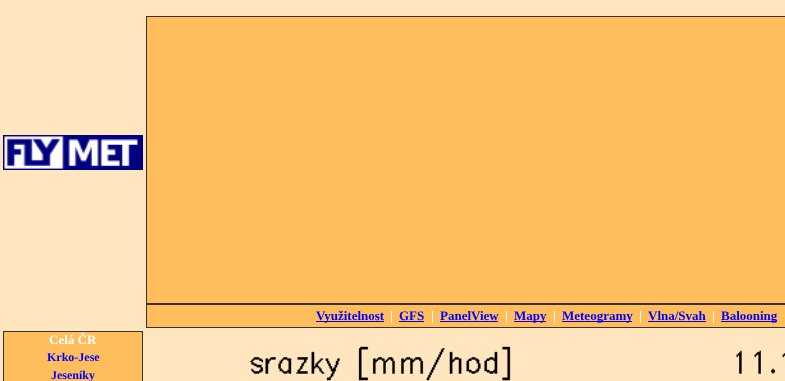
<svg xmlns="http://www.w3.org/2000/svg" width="785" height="381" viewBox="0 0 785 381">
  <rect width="100%" height="100%" fill="#ffe6bf"/>
  <image x="3" y="135" width="140" height="35" href="img1.png"/>
  <rect x="146.5" y="16.5" width="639" height="287" fill="#ffbd5b" stroke="#333333"/>
  <rect x="146.5" y="304.5" width="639" height="23" fill="#ffbd5b" stroke="#333333"/>
  <rect x="316" y="321" width="68" height="1" fill="#0000ff"/>
  <text x="316" y="320" font-family="Liberation Serif" font-size="13" font-weight="bold" fill="#0000ff">Využitelnost</text>
  <text x="390" y="320" font-family="Liberation Serif" font-size="13" font-weight="bold" fill="#ffffff">|</text>
  <text x="399" y="320" font-family="Liberation Serif" font-size="13" font-weight="bold" fill="#0000ff">GFS</text>
  <rect x="399" y="321" width="25" height="1" fill="#0000ff"/>
  <text x="431" y="320" font-family="Liberation Serif" font-size="13" font-weight="bold" fill="#ffffff">|</text>
  <text x="440" y="320" font-family="Liberation Serif" font-size="13" font-weight="bold" fill="#0000ff">PanelView</text>
  <rect x="440" y="321" width="58" height="1" fill="#0000ff"/>
  <text x="505" y="320" font-family="Liberation Serif" font-size="13" font-weight="bold" fill="#ffffff">|</text>
  <rect x="514" y="321" width="32" height="1" fill="#0000ff"/>
  <text x="514" y="320" font-family="Liberation Serif" font-size="13" font-weight="bold" fill="#0000ff">Mapy</text>
  <text x="553" y="320" font-family="Liberation Serif" font-size="13" font-weight="bold" fill="#ffffff">|</text>
  <rect x="562" y="321" width="70" height="1" fill="#0000ff"/>
  <text x="562" y="320" font-family="Liberation Serif" font-size="13" font-weight="bold" fill="#0000ff">Meteogramy</text>
  <text x="639" y="320" font-family="Liberation Serif" font-size="13" font-weight="bold" fill="#ffffff">|</text>
  <text x="648" y="320" font-family="Liberation Serif" font-size="13" font-weight="bold" fill="#0000ff">Vlna/Svah</text>
  <rect x="648" y="321" width="58" height="1" fill="#0000ff"/>
  <text x="712" y="320" font-family="Liberation Serif" font-size="13" font-weight="bold" fill="#ffffff">|</text>
  <rect x="721" y="321" width="56" height="1" fill="#0000ff"/>
  <text x="721" y="320" font-family="Liberation Serif" font-size="13" font-weight="bold" fill="#0000ff">Balooning</text>
  <rect x="3.5" y="331.5" width="139" height="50" fill="#ffbd5b" stroke="#333333"/>
  <text x="49" y="344" font-family="Liberation Serif" font-size="13" font-weight="bold" fill="#ffffff">Celá ČR</text>
  <text x="47" y="361" font-family="Liberation Serif" font-size="12" font-weight="bold" fill="#0000ff">Krko-Jese</text>
  <text x="51" y="379" font-family="Liberation Serif" font-size="12" font-weight="bold" fill="#0000ff">Jeseníky</text>
  <image x="250" y="346" width="535" height="35" href="img2.png"/>
</svg>
